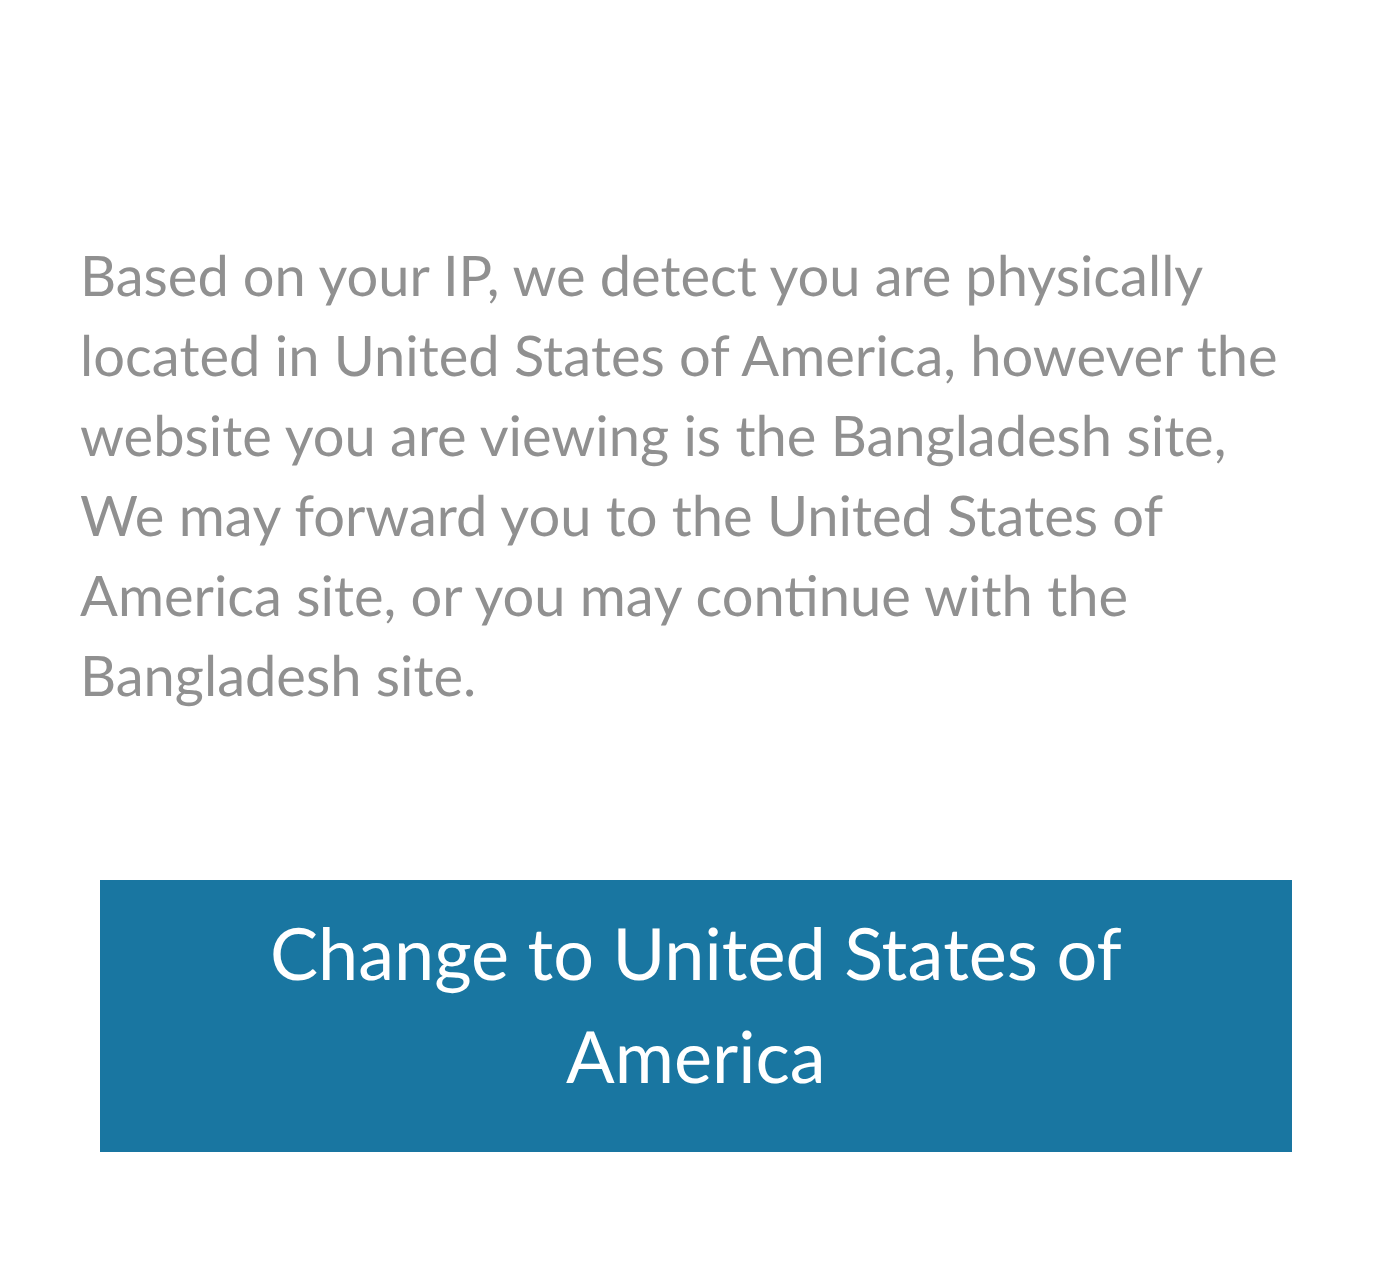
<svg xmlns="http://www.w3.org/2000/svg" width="1390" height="1280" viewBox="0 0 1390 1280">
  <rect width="100%" height="100%" fill="#ffffff"/>
  <text x="80" y="296" word-spacing="-0.25" font-family="Lato" font-size="56" fill="#909090">Based on your IP, we detect you are physically</text>
  <text x="80" y="376" font-family="Lato" font-size="56" fill="#909090">located in United States of America, however the</text>
  <text x="80" y="456" font-family="Lato" font-size="56" fill="#909090">website you are viewing is the Bangladesh site,</text>
  <text x="80" y="536" font-family="Lato" font-size="56" fill="#909090">We may forward you to the United States of</text>
  <text x="80" y="616" font-family="Lato" font-size="56" fill="#909090">America site, or you may continue with the</text>
  <text x="80" y="696" font-family="Lato" font-size="56" fill="#909090">Bangladesh site.</text>
  <rect x="100" y="880" width="1192" height="272" fill="#1976a1"/>
  <text x="270" y="980" font-family="Lato" font-size="72" fill="#ffffff">Change to United States of</text>
  <text x="566" y="1083" font-family="Lato" font-size="72" fill="#ffffff">America</text>
</svg>
